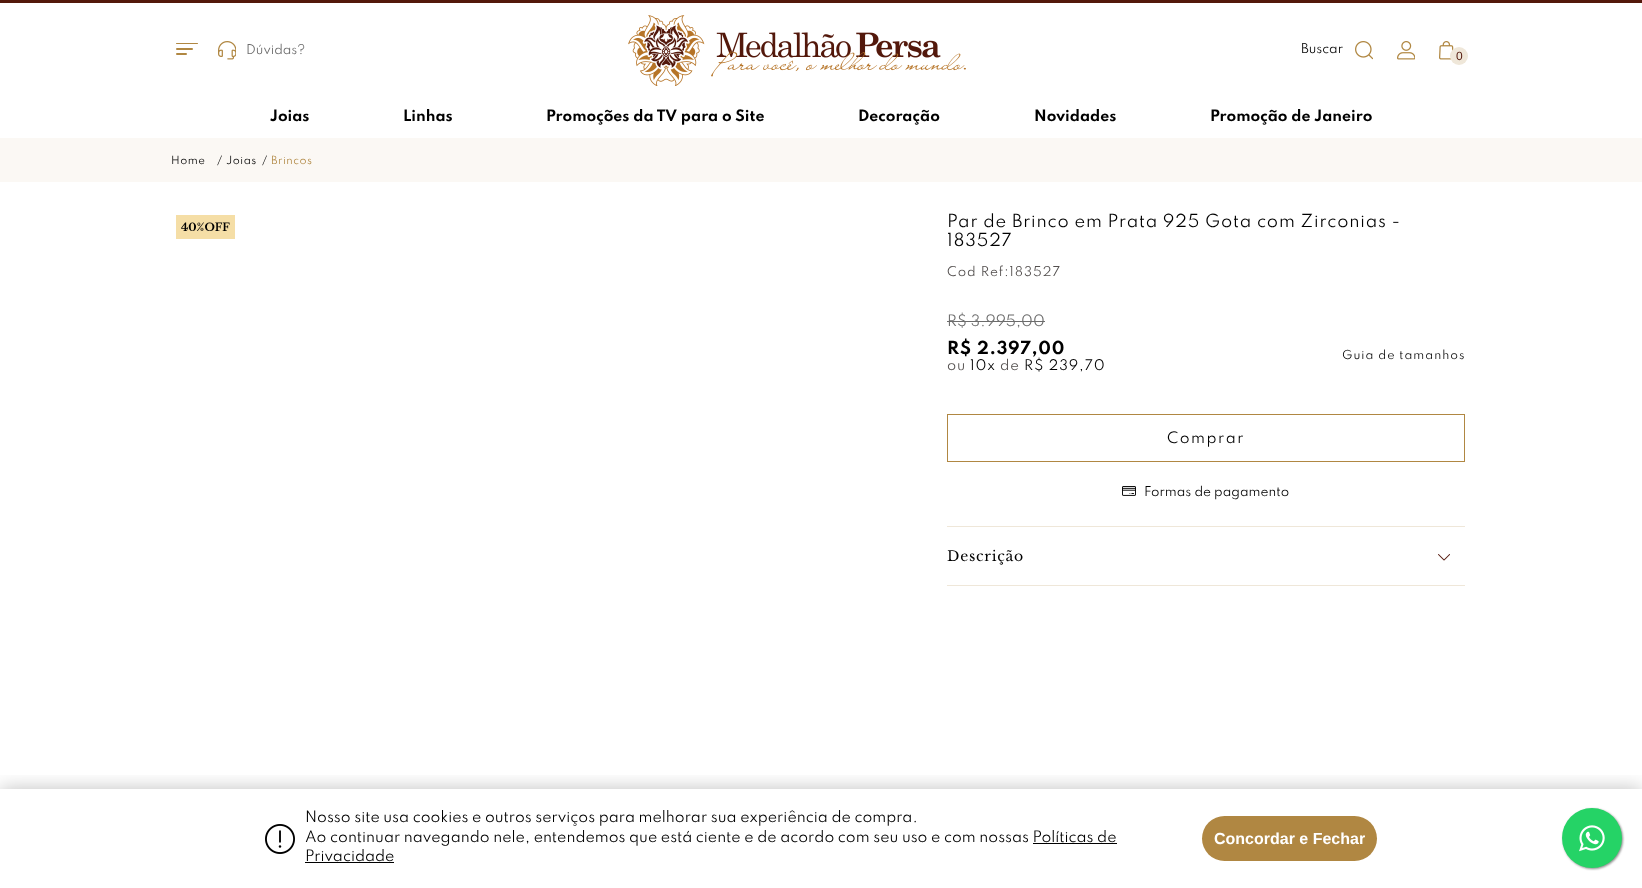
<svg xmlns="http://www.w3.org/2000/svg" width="1642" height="888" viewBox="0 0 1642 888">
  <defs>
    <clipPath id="clip1"><rect x="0" y="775" width="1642" height="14"/></clipPath>
    <filter id="blur1" x="-50%" y="-200%" width="200%" height="500%"><feGaussianBlur stdDeviation="10"/></filter>
    <filter id="blur2" x="-50%" y="-200%" width="200%" height="500%"><feGaussianBlur stdDeviation="1"/></filter>
  </defs>
  <rect width="100%" height="100%" fill="#ffffff"/>
  <rect x="0" y="138" width="1642" height="44" fill="#fbf8f4"/>
  <text x="171" y="164" font-family="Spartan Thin" font-size="10" letter-spacing="0.5" fill="#000000">Home</text>
  <text x="217" y="164" font-family="Spartan Thin" font-size="10" fill="#000000">/</text>
  <text x="226" y="164" font-family="Spartan Thin" font-size="10" letter-spacing="0.5" fill="#000000">Joias</text>
  <text x="262" y="164" font-family="Spartan Thin" font-size="10" fill="#000000">/</text>
  <text x="271" y="164" font-family="Spartan Thin" font-size="10" letter-spacing="0.5" fill="#b08742">Brincos</text>
  <rect x="0" y="0" width="1642" height="3" fill="#53180b"/>
  <rect x="176" y="43" width="22" height="1" rx="0.5" fill="#b08742"/>
  <rect x="176" y="48" width="17" height="2" rx="1" fill="#b08742"/>
  <rect x="176" y="53" width="11" height="2" rx="1" fill="#b08742"/>
  <image x="218" y="41" width="18" height="19" href="img1.png"/>
  <text x="246" y="54" font-family="Spartan Thin" font-size="12" fill="#6c6c6c">Dúvidas?</text>
  <image x="628" y="15" width="338" height="71" href="img2.png"/>
  <text x="1301" y="53" font-family="Spartan Thin" font-size="12" fill="#000000">Buscar</text>
  <image x="1355" y="41" width="18" height="19" href="img3.png"/>
  <image x="1397" y="41" width="18" height="19" href="img4.png"/>
  <image x="1439" y="41" width="15" height="19" href="img5.png"/>
  <circle cx="1459" cy="56" r="9" fill="#efe7d9"/>
  <text x="1456" y="60" font-family="Liberation Sans" font-size="12" fill="#53190c">0</text>
  <text x="270" y="121" font-family="Spartan Thin" font-size="14" font-weight="bold" fill="#000000">Joias</text>
  <text x="403" y="121" font-family="Spartan Thin" font-size="14" font-weight="bold" fill="#000000">Linhas</text>
  <text x="546" y="121" font-family="Spartan Thin" font-size="14" font-weight="bold" fill="#000000">Promoções da TV para o Site</text>
  <text x="858" y="121" font-family="Spartan Thin" font-size="14" font-weight="bold" fill="#000000">Decoração</text>
  <text x="1034" y="121" font-family="Spartan Thin" font-size="14" font-weight="bold" fill="#000000">Novidades</text>
  <text x="1210" y="121" font-family="Spartan Thin" font-size="14" font-weight="bold" fill="#000000">Promoção de Janeiro</text>
  <g clip-path="url(#clip1)">
    <rect x="0" y="789" width="1642" height="99" fill="#000000" fill-opacity="0.25" filter="url(#blur1)"/>
  </g>
  <image x="265" y="824" width="30" height="30" href="img6.png"/>
  <text x="305" y="822" font-family="Spartan Thin" font-size="14" fill="#000000">Nosso site usa cookies e outros serviços para melhorar sua experiência de compra.</text>
  <text x="305" y="842" font-family="Spartan Thin" font-size="14" fill="#000000">Ao continuar navegando nele, entendemos que está ciente e de acordo com seu uso e com nossas Políticas de</text>
  <text x="305" y="861" font-family="Spartan Thin" font-size="14" fill="#000000">Privacidade</text>
  <rect x="1033" y="843" width="84" height="1" fill="#000000"/>
  <rect x="305" y="862" width="89" height="1" fill="#000000"/>
  <rect x="1202" y="816" width="175" height="45" rx="22.5" fill="#b08742"/>
  <text x="1214" y="844" font-family="Liberation Sans" font-size="16" font-weight="bold" fill="#ffffff">Concordar e Fechar</text>
  <rect x="176" y="215" width="59" height="24" fill="#f5dea6"/>
  <text x="181" y="231" font-family="Libre Baskerville" font-size="11" font-weight="bold" fill="#000000">40%OFF</text>
  <text x="947" y="227" font-family="Spartan Thin" font-size="16" letter-spacing="0.8" fill="#000000">Par de Brinco em Prata 925 Gota com Zirconias -</text>
  <text x="947" y="246" font-family="Spartan Thin" font-size="16" letter-spacing="0.8" fill="#000000">183527</text>
  <text x="947" y="276" font-family="Spartan Thin" font-size="12" letter-spacing="1" fill="#534f4e">Cod Ref:183527</text>
  <text x="947" y="326" font-family="Spartan Thin" font-size="14" fill="#6c6c6c">R$ 3.995,00</text>
  <rect x="947" y="321" width="98" height="1" fill="#6c6c6c"/>
  <text x="947" y="354" font-family="Spartan Thin" font-size="16" font-weight="bold" letter-spacing="0.75" fill="#000000">R$ 2.397,00</text>
  <text x="947" y="370" font-family="Spartan Thin" font-size="13" letter-spacing="0.9" fill="#534f4e">ou</text>
  <text x="970" y="370" font-family="Spartan Thin" font-size="13" letter-spacing="0.9" fill="#000000">10x</text>
  <text x="1000" y="370" font-family="Spartan Thin" font-size="13" letter-spacing="0.9" fill="#534f4e">de</text>
  <text x="1024" y="370" font-family="Spartan Thin" font-size="13" letter-spacing="0.9" fill="#000000">R$ 239,70</text>
  <text x="1342" y="359" font-family="Spartan Thin" font-size="11" letter-spacing="1" fill="#000000">Guia de tamanhos</text>
  <rect x="947.5" y="414.5" width="517" height="47" fill="none" stroke="#b08742"/>
  <text x="1167" y="443" font-family="Spartan Thin" font-size="14" letter-spacing="1.5" fill="#000000">Comprar</text>
  <rect x="947" y="526" width="518" height="1" fill="#efe7d9"/>
  <image x="1122" y="486" width="14" height="10" href="img7.png"/>
  <text x="1144" y="496" font-family="Spartan Thin" font-size="12" fill="#000000">Formas de pagamento</text>
  <rect x="947" y="585" width="518" height="1" fill="#efe7d9"/>
  <text x="947" y="561" font-family="Libre Baskerville" font-size="14" letter-spacing="0.75" fill="#000000">Descrição</text>
  <image x="1438" y="554" width="12" height="7" href="img8.png"/>
  <rect x="1563" y="809" width="60" height="60" rx="30" fill="#888888" filter="url(#blur2)"/>
  <circle cx="1592" cy="838" r="30" fill="#25d366"/>
  <image x="1579" y="825" width="26" height="27" href="img9.png"/>
</svg>
